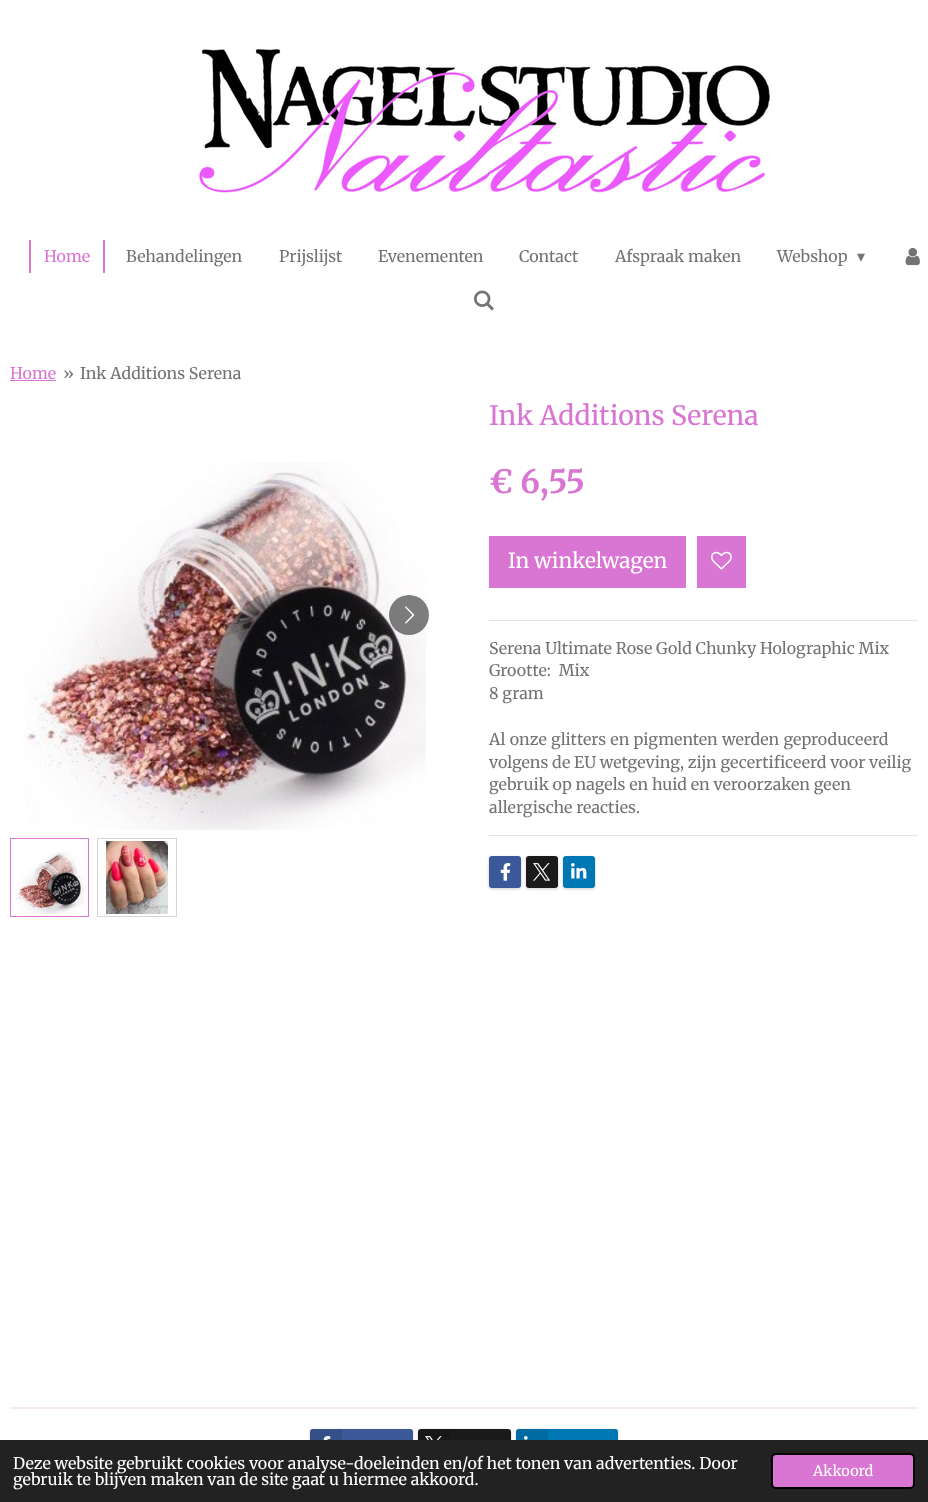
<svg xmlns="http://www.w3.org/2000/svg" width="928" height="1502" viewBox="0 0 928 1502">
  <defs>
    <filter id="blur1" x="-50%" y="-200%" width="200%" height="500%"><feGaussianBlur stdDeviation="1.5"/></filter>
  </defs>
  <rect width="100%" height="100%" fill="#ffffff"/>
  <image x="198" y="47" width="574" height="146" href="img1.png"/>
  <rect x="103" y="240" width="2" height="33" fill="#d975d2"/>
  <rect x="29" y="240" width="2" height="33" fill="#d975d2"/>
  <text x="44" y="262" font-family="Merriweather" font-size="16" fill="#d975d2">Home</text>
  <text x="126" y="262" font-family="Merriweather" font-size="16" fill="#737373">Behandelingen</text>
  <text x="279" y="262" font-family="Merriweather" font-size="16" fill="#737373">Prijslijst</text>
  <text x="378" y="262" font-family="Merriweather" font-size="16" fill="#737373">Evenementen</text>
  <text x="519" y="262" font-family="Merriweather" font-size="16" fill="#737373">Contact</text>
  <text x="615" y="262" font-family="Merriweather" font-size="16" fill="#737373">Afspraak maken</text>
  <text x="777" y="262" font-family="Merriweather" font-size="16" fill="#737373">Webshop</text>
  <text x="857" y="262" font-family="DejaVu Sans" font-size="16" fill="#737373">▾</text>
  <image x="905" y="247" width="15" height="19" href="img2.png"/>
  <image x="474" y="290" width="20" height="21" href="img3.png"/>
  <text x="10" y="379" font-family="Merriweather" font-size="16" fill="#d975d2">Home</text>
  <rect x="10" y="380" width="46" height="1" fill="#d975d2"/>
  <text x="63" y="379" font-family="Merriweather" font-size="16" fill="#737373">»</text>
  <text x="80" y="379" font-family="Merriweather" font-size="16" fill="#737373">Ink Additions Serena</text>
  <text x="489" y="425" font-family="Merriweather" font-size="26.75" fill="#d975d2">Ink Additions Serena</text>
  <image x="23" y="462" width="403" height="368" href="img4.png"/>
  <circle cx="409" cy="615" r="20" fill="#000000" fill-opacity="0.5"/>
  <image x="405" y="606" width="10" height="18" href="img5.png"/>
  <rect x="10.5" y="838.5" width="78" height="78" fill="none" stroke="#d975d2"/>
  <image x="15" y="851" width="69" height="63" href="img6.png"/>
  <rect x="97.5" y="838.5" width="79" height="78" fill="none" stroke="#d5d5d5"/>
  <image x="106" y="841" width="62" height="73" href="img7.png"/>
  <text x="489" y="493" font-family="Merriweather" font-size="32" font-weight="bold" fill="#d975d2">€ 6,55</text>
  <rect x="489" y="536" width="197" height="52" fill="#d975d2"/>
  <text x="508" y="568" font-family="Merriweather" font-size="20.75" fill="#ffffff">In winkelwagen</text>
  <rect x="697" y="536" width="49" height="52" fill="#d975d2"/>
  <image x="711" y="551" width="21" height="19" href="img8.png"/>
  <rect x="489" y="620" width="429" height="1" fill="#e3e3e3"/>
  <text x="489" y="654" font-family="Merriweather" font-size="16" fill="#737373">Serena Ultimate Rose Gold Chunky Holographic Mix</text>
  <text x="489" y="676" word-spacing="4" font-family="Merriweather" font-size="16" fill="#737373">Grootte: Mix</text>
  <text x="489" y="699" font-family="Merriweather" font-size="16" fill="#737373">8 gram</text>
  <text x="489" y="745" word-spacing="0.5" font-family="Merriweather" font-size="16" fill="#737373">Al onze glitters en pigmenten werden geproduceerd</text>
  <text x="489" y="768" font-family="Merriweather" font-size="16" fill="#737373">volgens de EU wetgeving, zijn gecertificeerd voor veilig</text>
  <text x="489" y="790" font-family="Merriweather" font-size="16" fill="#737373">gebruik op nagels en huid en veroorzaken geen</text>
  <text x="489" y="813" font-family="Merriweather" font-size="16" fill="#737373">allergische reacties.</text>
  <rect x="489" y="835" width="429" height="1" fill="#e3e3e3"/>
  <rect x="489" y="857" width="32" height="32" rx="3" fill="#000000" fill-opacity="0.2" filter="url(#blur1)"/>
  <rect x="489" y="856" width="32" height="32" rx="3" fill="#3b5998"/>
  <image x="500" y="863" width="11" height="18" href="img9.png"/>
  <rect x="526" y="857" width="32" height="32" rx="3" fill="#000000" fill-opacity="0.2" filter="url(#blur1)"/>
  <rect x="526" y="856" width="32" height="32" rx="3" fill="#1a1a1a"/>
  <image x="533" y="863" width="18" height="18" href="img10.png"/>
  <rect x="563" y="857" width="32" height="32" rx="3" fill="#000000" fill-opacity="0.2" filter="url(#blur1)"/>
  <rect x="563" y="856" width="32" height="32" rx="3" fill="#0077b5"/>
  <image x="571" y="863" width="16" height="16" href="img11.png"/>
  <rect x="10" y="1407" width="908" height="2" fill="#f9eaf8"/>
  <rect x="310" y="1430" width="103" height="32" rx="3" fill="#000000" fill-opacity="0.2" filter="url(#blur1)"/>
  <rect x="310" y="1429" width="103" height="32" rx="3" fill="#3b5998"/>
  <path d="M313 1429H342V1461H313C311.5 1461 310 1459.5 310 1458V1432C310 1430.5 311.5 1429 313 1429Z" fill="#000000" fill-opacity="0.1"/>
  <image x="323" y="1436" width="8" height="4" href="img12.png"/>
  <rect x="418" y="1430" width="93" height="32" rx="3" fill="#000000" fill-opacity="0.2" filter="url(#blur1)"/>
  <rect x="418" y="1429" width="93" height="32" rx="3" fill="#1a1a1a"/>
  <path d="M421 1429H450V1461H421C419.5 1461 418 1459.5 418 1458V1432C418 1430.5 419.5 1429 421 1429Z" fill="#000000" fill-opacity="0.1"/>
  <image x="425" y="1436" width="17" height="4" href="img13.png"/>
  <rect x="516" y="1430" width="102" height="32" rx="3" fill="#000000" fill-opacity="0.2" filter="url(#blur1)"/>
  <rect x="516" y="1429" width="102" height="32" rx="3" fill="#0077b5"/>
  <path d="M519 1429H548V1461H519C517.5 1461 516 1459.5 516 1458V1432C516 1430.5 517.5 1429 519 1429Z" fill="#000000" fill-opacity="0.1"/>
  <image x="524" y="1436" width="4" height="4" href="img14.png"/>
  <rect x="0" y="1440" width="928" height="62" fill="#222222"/>
  <text x="13" y="1469" font-family="Merriweather" font-size="16" fill="#ffffff">Deze website gebruikt cookies voor analyse-doeleinden en/of het tonen van advertenties. Door</text>
  <text x="13" y="1485" font-family="Merriweather" font-size="16" fill="#ffffff">gebruik te blijven maken van de site gaat u hiermee akkoord.</text>
  <rect x="772" y="1454" width="142" height="34" rx="4" fill="#d975d2" stroke="#000000" stroke-width="2"/>
  <text x="813" y="1476" font-family="Merriweather" font-size="14.5" fill="#ffffff">Akkoord</text>
</svg>
